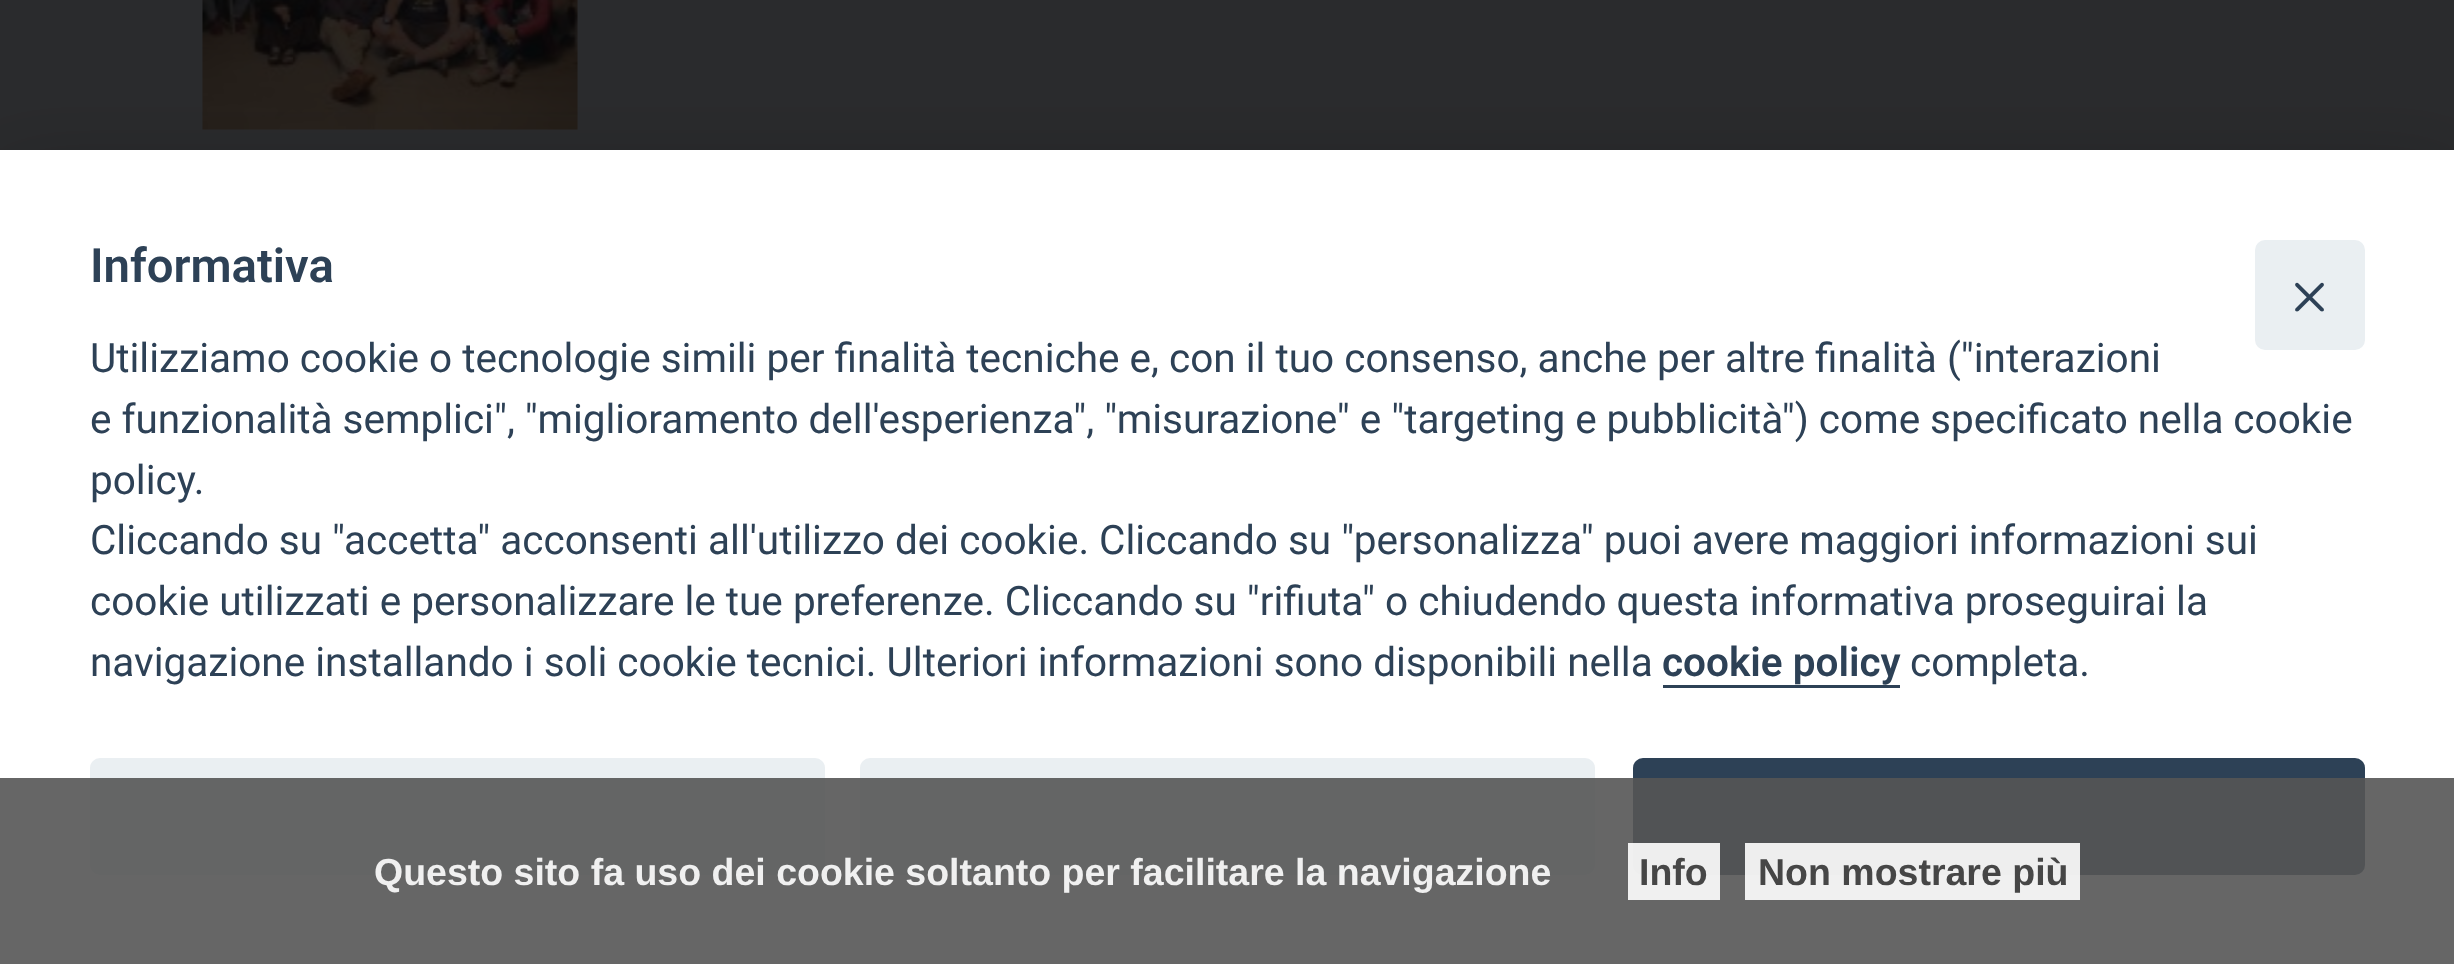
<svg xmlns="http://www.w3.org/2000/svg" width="2454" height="964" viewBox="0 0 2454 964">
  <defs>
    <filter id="blur1" x="-50%" y="-200%" width="200%" height="500%"><feGaussianBlur stdDeviation="42"/></filter>
  </defs>
  <rect width="100%" height="100%" fill="#2a2b2d"/>
  <image x="202" y="0" width="376" height="130" href="img1.png"/>
  <rect x="0" y="178" width="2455" height="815" fill="#020203" fill-opacity="0.28" filter="url(#blur1)"/>
  <rect x="0" y="150" width="2454" height="814" fill="#ffffff"/>
  <rect x="2255" y="240" width="110" height="110" rx="10" fill="#eaeff2"/>
  <path d="M2323.5 283.5C2324 284 2324 285 2323.5 286L2298.5 311C2297.5 311.5 2296.5 311.5 2295.5 311C2295 310.5 2295 309 2295.5 308.5L2320.5 283.5C2321.5 282.5 2322.5 282.5 2323.5 283.5Z" fill="#2d4156"/>
  <path d="M2295.5 283.5C2296.5 282.5 2297.5 282.5 2298.5 283.5L2323.5 308.5C2324 309 2324 310.5 2323.5 311C2322.5 311.5 2321.5 311.5 2320.5 311L2295.5 286C2295 285 2295 284 2295.5 283.5Z" fill="#2d4156"/>
  <text x="90" y="282" font-family="Roboto" font-size="47.25" font-weight="600" fill="#2d4156">Informativa</text>
  <text x="90" y="372" font-family="Roboto" font-size="40.5" fill="#2d4156">Utilizziamo cookie o tecnologie simili per finalità tecniche e, con il tuo consenso, anche per altre finalità ("interazioni</text>
  <text x="90" y="433" word-spacing="-0.1" font-family="Roboto" font-size="40.5" fill="#2d4156">e funzionalità semplici", "miglioramento dell'esperienza", "misurazione" e "targeting e pubblicità") come specificato nella cookie</text>
  <text x="90" y="494" font-family="Roboto" font-size="40.5" fill="#2d4156">policy.</text>
  <text x="90" y="554" font-family="Roboto" font-size="40.5" fill="#2d4156">Cliccando su "accetta" acconsenti all'utilizzo dei cookie. Cliccando su "personalizza" puoi avere maggiori informazioni sui</text>
  <text x="90" y="615" font-family="Roboto" font-size="40.5" fill="#2d4156">cookie utilizzati e personalizzare le tue preferenze. Cliccando su "rifiuta" o chiudendo questa informativa proseguirai la</text>
  <text x="90" y="676" font-family="Roboto" font-size="40.5" fill="#2d4156">navigazione installando i soli cookie tecnici. Ulteriori informazioni sono disponibili nella</text>
  <text x="1662" y="676" font-family="Roboto" font-size="40.5" font-weight="600" fill="#2d4156">cookie policy</text>
  <rect x="1663" y="685" width="237" height="3" fill="#2d4156"/>
  <text x="1910" y="676" font-family="Roboto" font-size="40.5" fill="#2d4156">completa.</text>
  <rect x="90" y="758" width="735" height="117" rx="10" fill="#eaeff2"/>
  <rect x="860" y="758" width="735" height="117" rx="10" fill="#eaeff2"/>
  <rect x="1633" y="758" width="732" height="117" rx="10" fill="#2d4156"/>
  <rect x="0" y="778" width="2454" height="186" fill="#555555" fill-opacity="0.9"/>
  <text x="374" y="885" font-family="Liberation Sans" font-size="37.5" font-weight="bold" fill="#f0f0f0">Questo sito fa uso dei cookie soltanto per facilitare la navigazione</text>
  <rect x="1628" y="843" width="92" height="57" fill="#ffffff" fill-opacity="0.9"/>
  <text x="1639" y="885" font-family="Liberation Sans" font-size="37.5" font-weight="bold" fill="#464646">Info</text>
  <rect x="1745" y="843" width="335" height="57" fill="#ffffff" fill-opacity="0.9"/>
  <text x="1758" y="885" font-family="Liberation Sans" font-size="37.5" font-weight="bold" fill="#464646">Non mostrare più</text>
</svg>
